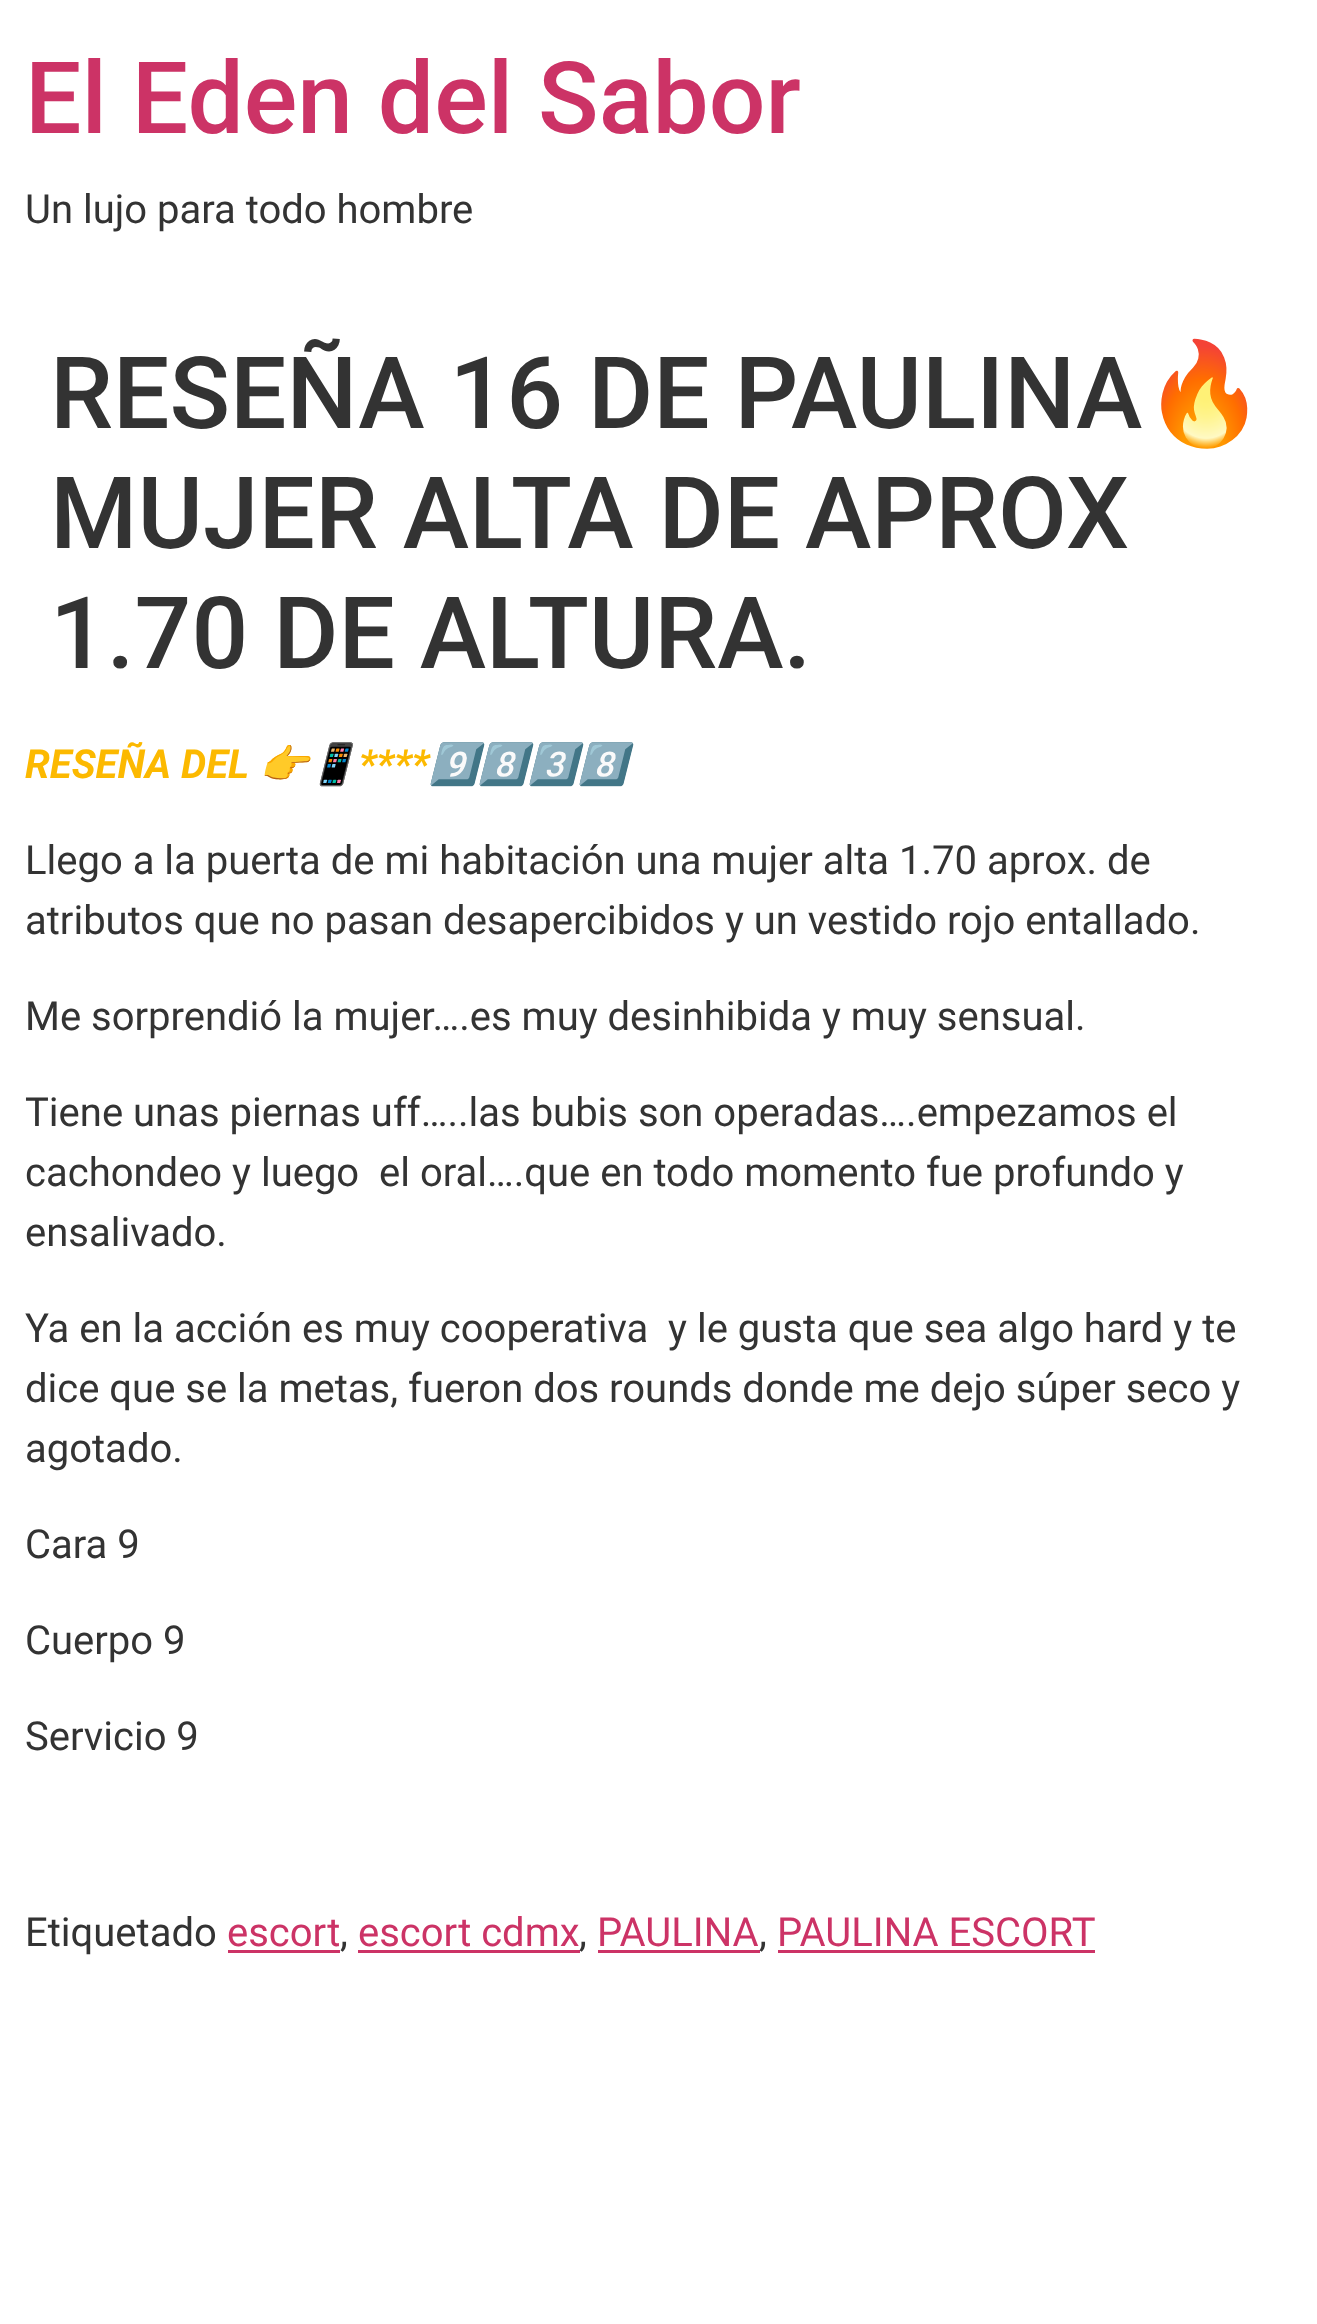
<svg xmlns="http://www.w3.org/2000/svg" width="1317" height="2324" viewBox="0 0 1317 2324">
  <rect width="100%" height="100%" fill="#ffffff"/>
  <text x="25" y="133" font-family="Roboto" font-size="100" font-weight="500" fill="#cc3366">El Eden del Sabor</text>
  <text x="25" y="223" font-family="Roboto" font-size="40" fill="#333333">Un lujo para todo hombre</text>
  <text x="50" y="428" font-family="Roboto" font-size="100" font-weight="500" fill="#333333">RESEÑA 16 DE PAULINA</text>
  <text x="1142" y="428" font-family="Noto Color Emoji" font-size="100" fill="#333333">🔥</text>
  <text x="50" y="548" font-family="Roboto" font-size="100" font-weight="500" fill="#333333">MUJER ALTA DE APROX</text>
  <text x="50" y="668" font-family="Roboto" font-size="100" font-weight="500" fill="#333333">1.70 DE ALTURA.</text>
  <text x="25" y="778" font-family="Roboto" font-size="40" font-weight="bold" font-style="italic" fill="#fcb900">RESEÑA DEL</text>
  <text x="259" y="778" font-family="Noto Color Emoji" font-size="40" font-weight="bold" font-style="italic" fill="#fcb900">👉📱</text>
  <text x="359" y="778" font-family="Roboto" font-size="40" font-weight="bold" font-style="italic" fill="#fcb900">****</text>
  <text x="429" y="778" font-family="Noto Color Emoji" font-size="40" font-weight="bold" font-style="italic" fill="#0693e3">9️⃣8️⃣3️⃣8️⃣</text>
  <text x="25" y="874" font-family="Roboto" font-size="40" fill="#333333">Llego a la puerta de mi habitación una mujer alta 1.70 aprox. de</text>
  <text x="25" y="934" font-family="Roboto" font-size="40" fill="#333333">atributos que no pasan desapercibidos y un vestido rojo entallado.</text>
  <text x="25" y="1030" font-family="Roboto" font-size="40" fill="#333333">Me sorprendió la mujer….es muy desinhibida y muy sensual.</text>
  <text x="25" y="1126" font-family="Roboto" font-size="40" fill="#333333">Tiene unas piernas uff…..las bubis son operadas….empezamos el</text>
  <text x="25" y="1186" font-family="Roboto" font-size="40" fill="#333333" xml:space="preserve">cachondeo y luego  el oral….que en todo momento fue profundo y</text>
  <text x="25" y="1246" font-family="Roboto" font-size="40" fill="#333333">ensalivado.</text>
  <text x="25" y="1342" font-family="Roboto" font-size="40" fill="#333333" xml:space="preserve">Ya en la acción es muy cooperativa  y le gusta que sea algo hard y te</text>
  <text x="25" y="1402" font-family="Roboto" font-size="40" fill="#333333">dice que se la metas, fueron dos rounds donde me dejo súper seco y</text>
  <text x="25" y="1462" font-family="Roboto" font-size="40" fill="#333333">agotado.</text>
  <text x="25" y="1558" font-family="Roboto" font-size="40" fill="#333333">Cara 9</text>
  <text x="25" y="1654" font-family="Roboto" font-size="40" fill="#333333">Cuerpo 9</text>
  <text x="25" y="1750" font-family="Roboto" font-size="40" fill="#333333">Servicio 9</text>
  <text x="25" y="1946" font-family="Roboto" font-size="40" fill="#333333">Etiquetado</text>
  <text x="227" y="1946" font-family="Roboto" font-size="40" fill="#cc3366">escort</text>
  <text x="340" y="1946" font-family="Roboto" font-size="40" fill="#333333">,</text>
  <rect x="228" y="1950" width="112" height="3" fill="#cc3366"/>
  <text x="358" y="1946" font-family="Roboto" font-size="40" fill="#cc3366">escort cdmx</text>
  <rect x="358" y="1950" width="222" height="3" fill="#cc3366"/>
  <text x="579" y="1946" font-family="Roboto" font-size="40" fill="#333333">,</text>
  <text x="597" y="1946" font-family="Roboto" font-size="40" fill="#cc3366">PAULINA</text>
  <rect x="598" y="1950" width="162" height="3" fill="#cc3366"/>
  <text x="759" y="1946" font-family="Roboto" font-size="40" fill="#333333">,</text>
  <rect x="778" y="1950" width="317" height="3" fill="#cc3366"/>
  <text x="777" y="1946" font-family="Roboto" font-size="40" fill="#cc3366">PAULINA ESCORT</text>
</svg>
